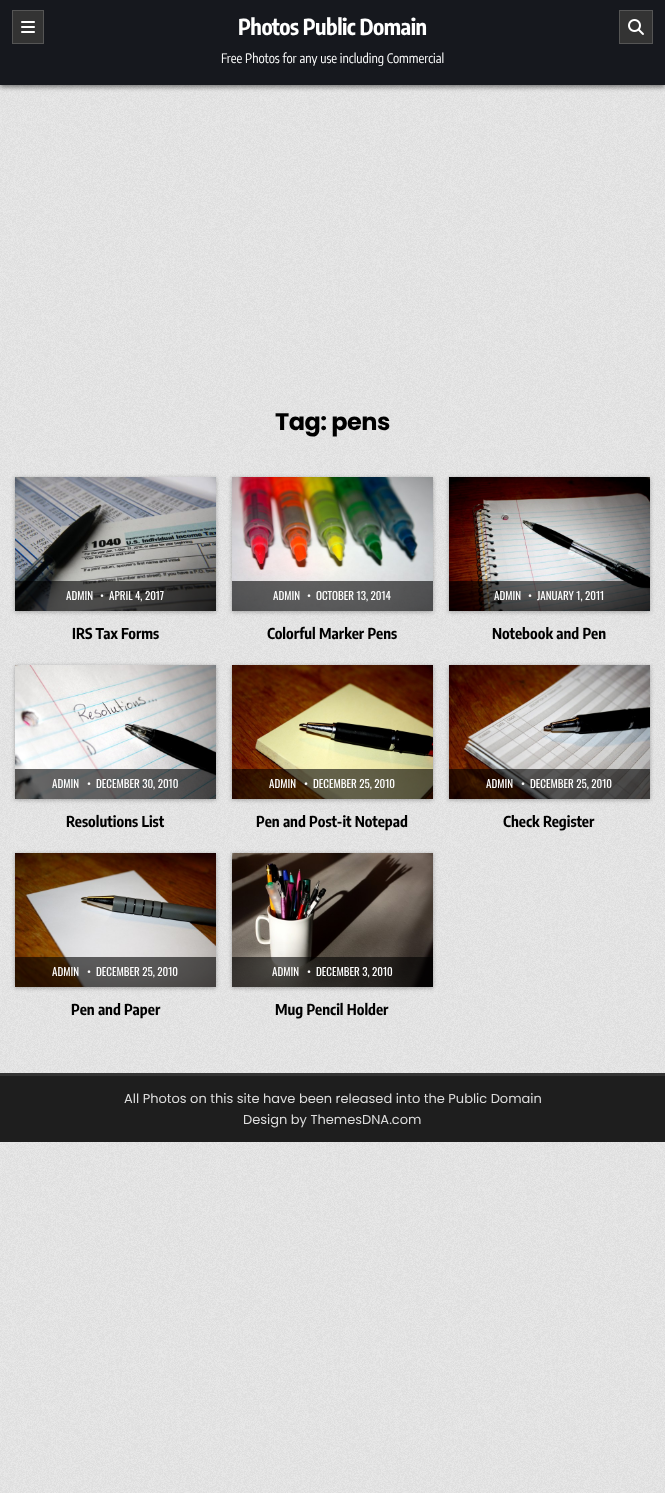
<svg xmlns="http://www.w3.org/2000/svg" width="665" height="1493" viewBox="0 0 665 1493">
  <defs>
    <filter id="blur1" x="-50%" y="-200%" width="200%" height="500%"><feGaussianBlur stdDeviation="2.5"/></filter>
    <filter id="blur2" x="-50%" y="-200%" width="200%" height="500%"><feGaussianBlur stdDeviation="2"/></filter>
  </defs>
  <rect width="100%" height="100%" fill="#ffffff"/>
  <image x="0" y="85" width="665" height="1408" href="img1.png"/>
  <rect x="0" y="2" width="665" height="85" fill="#000000" fill-opacity="0.5" filter="url(#blur1)"/>
  <rect x="0" y="0" width="665" height="85" fill="#16181e"/>
  <rect x="12.5" y="10.5" width="31" height="33" fill="#333333" stroke="#555555"/>
  <image x="21" y="21" width="14" height="12" href="img2.png"/>
  <text x="238" y="35" font-family="Encode Sans Condensed" font-size="22" font-weight="bold" letter-spacing="-0.5" fill="#ffffff">Photos Public Domain</text>
  <text x="221" y="63" font-family="Encode Sans Condensed" font-size="13" fill="#ffffff">Free Photos for any use including Commercial</text>
  <rect x="619.5" y="10.5" width="33" height="33" fill="#333333" stroke="#555555"/>
  <image x="628" y="19" width="16" height="16" href="img3.png"/>
  <text x="275" y="430" font-family="Poppins" font-size="24" font-weight="bold" letter-spacing="-0.5" fill="#000000">Tag: pens</text>
  <rect x="15" y="478" width="201" height="134" fill="#000000" fill-opacity="0.3" filter="url(#blur2)"/>
  <image x="15" y="477" width="201" height="134" href="img4.png"/>
  <rect x="15" y="581" width="201" height="30" fill="#000000" fill-opacity="0.6"/>
  <text x="66" y="600" font-family="Oswald" font-size="11" fill="#ffffff">ADMIN</text>
  <text x="100" y="600" font-family="Oswald" font-size="11" fill="#ffffff">•</text>
  <text x="109" y="600" font-family="Oswald" font-size="11" fill="#ffffff">APRIL 4, 2017</text>
  <text x="72" y="639" font-family="Encode Sans Condensed" font-size="15" font-weight="bold" fill="#000000">IRS Tax Forms</text>
  <rect x="232" y="478" width="201" height="134" fill="#000000" fill-opacity="0.3" filter="url(#blur2)"/>
  <image x="232" y="477" width="201" height="134" href="img5.png"/>
  <rect x="232" y="581" width="201" height="30" fill="#000000" fill-opacity="0.6"/>
  <text x="273" y="600" font-family="Oswald" font-size="11" fill="#ffffff">ADMIN</text>
  <text x="307" y="600" font-family="Oswald" font-size="11" fill="#ffffff">•</text>
  <text x="316" y="600" font-family="Oswald" font-size="11" fill="#ffffff">OCTOBER 13, 2014</text>
  <text x="267" y="639" font-family="Encode Sans Condensed" font-size="15" font-weight="bold" fill="#000000">Colorful Marker Pens</text>
  <rect x="449" y="478" width="201" height="134" fill="#000000" fill-opacity="0.3" filter="url(#blur2)"/>
  <image x="449" y="477" width="201" height="134" href="img6.png"/>
  <rect x="449" y="581" width="201" height="30" fill="#000000" fill-opacity="0.6"/>
  <text x="494" y="600" font-family="Oswald" font-size="11" fill="#ffffff">ADMIN</text>
  <text x="528" y="600" font-family="Oswald" font-size="11" fill="#ffffff">•</text>
  <text x="537" y="600" font-family="Oswald" font-size="11" fill="#ffffff">JANUARY 1, 2011</text>
  <text x="492" y="639" font-family="Encode Sans Condensed" font-size="15" font-weight="bold" fill="#000000">Notebook and Pen</text>
  <rect x="15" y="666" width="201" height="134" fill="#000000" fill-opacity="0.3" filter="url(#blur2)"/>
  <image x="15" y="665" width="201" height="134" href="img7.png"/>
  <rect x="15" y="769" width="201" height="30" fill="#000000" fill-opacity="0.6"/>
  <text x="52" y="788" font-family="Oswald" font-size="11" fill="#ffffff">ADMIN</text>
  <text x="87" y="788" font-family="Oswald" font-size="11" fill="#ffffff">•</text>
  <text x="96" y="788" font-family="Oswald" font-size="11" fill="#ffffff">DECEMBER 30, 2010</text>
  <text x="66" y="827" font-family="Encode Sans Condensed" font-size="15" font-weight="bold" fill="#000000">Resolutions List</text>
  <rect x="232" y="666" width="201" height="134" fill="#000000" fill-opacity="0.3" filter="url(#blur2)"/>
  <image x="232" y="665" width="201" height="134" href="img8.png"/>
  <rect x="232" y="769" width="201" height="30" fill="#000000" fill-opacity="0.6"/>
  <text x="269" y="788" font-family="Oswald" font-size="11" fill="#ffffff">ADMIN</text>
  <text x="304" y="788" font-family="Oswald" font-size="11" fill="#ffffff">•</text>
  <text x="313" y="788" font-family="Oswald" font-size="11" fill="#ffffff">DECEMBER 25, 2010</text>
  <text x="256" y="827" font-family="Encode Sans Condensed" font-size="15" font-weight="bold" fill="#000000">Pen and Post-it Notepad</text>
  <rect x="449" y="666" width="201" height="134" fill="#000000" fill-opacity="0.3" filter="url(#blur2)"/>
  <image x="449" y="665" width="201" height="134" href="img9.png"/>
  <rect x="449" y="769" width="201" height="30" fill="#000000" fill-opacity="0.6"/>
  <text x="486" y="788" font-family="Oswald" font-size="11" fill="#ffffff">ADMIN</text>
  <text x="521" y="788" font-family="Oswald" font-size="11" fill="#ffffff">•</text>
  <text x="530" y="788" font-family="Oswald" font-size="11" fill="#ffffff">DECEMBER 25, 2010</text>
  <text x="503" y="827" font-family="Encode Sans Condensed" font-size="15" font-weight="bold" fill="#000000">Check Register</text>
  <rect x="15" y="854" width="201" height="134" fill="#000000" fill-opacity="0.3" filter="url(#blur2)"/>
  <image x="15" y="853" width="201" height="134" href="img10.png"/>
  <rect x="15" y="957" width="201" height="30" fill="#000000" fill-opacity="0.6"/>
  <text x="52" y="976" font-family="Oswald" font-size="11" fill="#ffffff">ADMIN</text>
  <text x="87" y="976" font-family="Oswald" font-size="11" fill="#ffffff">•</text>
  <text x="96" y="976" font-family="Oswald" font-size="11" fill="#ffffff">DECEMBER 25, 2010</text>
  <text x="71" y="1015" font-family="Encode Sans Condensed" font-size="15" font-weight="bold" fill="#000000">Pen and Paper</text>
  <rect x="232" y="854" width="201" height="134" fill="#000000" fill-opacity="0.3" filter="url(#blur2)"/>
  <image x="232" y="853" width="201" height="134" href="img11.png"/>
  <rect x="232" y="957" width="201" height="30" fill="#000000" fill-opacity="0.6"/>
  <text x="272" y="976" font-family="Oswald" font-size="11" fill="#ffffff">ADMIN</text>
  <text x="307" y="976" font-family="Oswald" font-size="11" fill="#ffffff">•</text>
  <text x="316" y="976" font-family="Oswald" font-size="11" fill="#ffffff">DECEMBER 3, 2010</text>
  <text x="275" y="1015" font-family="Encode Sans Condensed" font-size="15" font-weight="bold" fill="#000000">Mug Pencil Holder</text>
  <rect x="0" y="1073" width="665" height="3" fill="#333333"/>
  <rect x="0" y="1076" width="665" height="66" fill="#1e1e1e"/>
  <text x="124" y="1103" font-family="Poppins" font-size="13" fill="#dddddd">All Photos on this site have been released into the Public Domain</text>
  <text x="243" y="1124" font-family="Poppins" font-size="13" fill="#dddddd">Design by ThemesDNA.com</text>
</svg>
